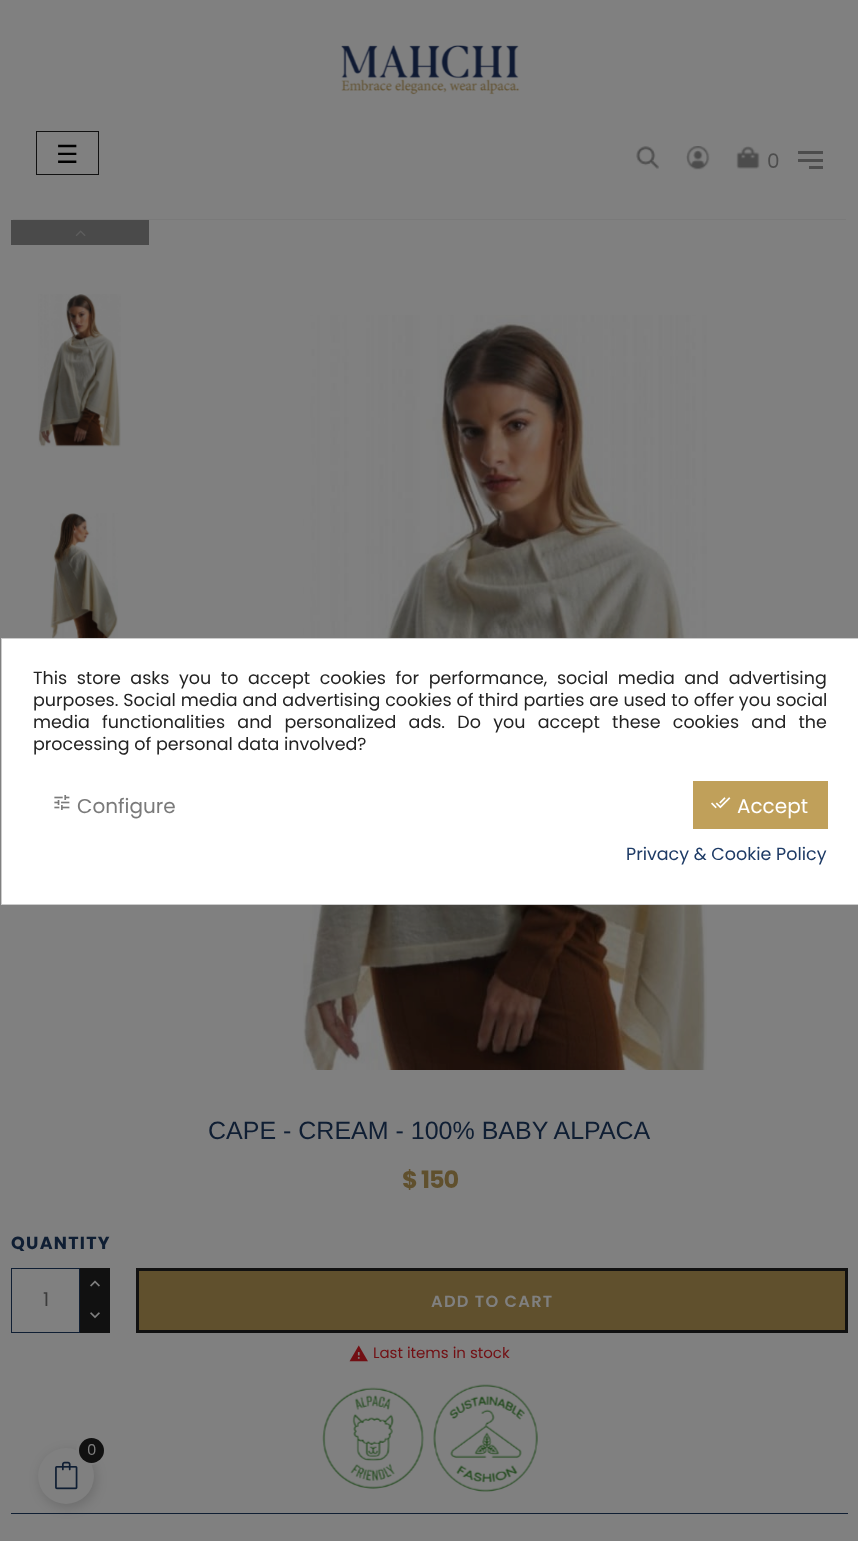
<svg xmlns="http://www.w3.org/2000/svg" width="858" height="1541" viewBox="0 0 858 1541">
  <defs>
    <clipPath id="clip1"><rect x="34" y="669" width="794" height="87"/></clipPath>
    <filter id="blur1" x="-50%" y="-200%" width="200%" height="500%"><feGaussianBlur stdDeviation="6"/></filter>
  </defs>
  <rect width="100%" height="100%" fill="#808080"/>
  <rect x="13" y="219" width="833" height="1" fill="#7a7a7a"/>
  <image x="341" y="45" width="179" height="50" href="img1.png"/>
  <rect x="36.5" y="131.5" width="62" height="43" fill="none" stroke="#111111"/>
  <text x="56" y="163" font-family="DejaVu Sans" font-size="25" fill="#000000">☰</text>
  <image x="636" y="146" width="23" height="23" href="img2.png"/>
  <image x="686" y="146" width="24" height="24" href="img3.png"/>
  <image x="736" y="146" width="24" height="23" href="img4.png"/>
  <text x="767" y="168" font-family="Poppins" font-size="20" fill="#4d4d4d">0</text>
  <rect x="798" y="151" width="25" height="3" fill="#4d4d4d"/>
  <rect x="798" y="159" width="25" height="3" fill="#4d4d4d"/>
  <rect x="809" y="166" width="14" height="3" fill="#4d4d4d"/>
  <rect x="11" y="220" width="138" height="25" fill="#4a4a4a"/>
  <image x="75" y="230" width="11" height="6" href="img5.png"/>
  <image x="38" y="294" width="83" height="153" href="img6.png"/>
  <image x="50" y="513" width="68" height="125" href="img7.png"/>
  <image x="303" y="315" width="404" height="755" href="img8.png"/>
  <text x="208" y="1139" font-family="Liberation Sans" font-size="25" fill="#0f1e33">CAPE - CREAM - 100% BABY ALPACA</text>
  <text x="402" y="1188" font-family="Poppins" font-size="24" font-weight="bold" letter-spacing="-1" fill="#60502d">$ 150</text>
  <text x="11" y="1249" font-family="Poppins" font-size="17.5" font-weight="bold" letter-spacing="1.25" fill="#0f1e33">QUANTITY</text>
  <rect x="11.5" y="1268.5" width="68" height="64" fill="none" stroke="#0f1e33"/>
  <text x="43" y="1306" font-family="Poppins" font-size="19" fill="#3c3c3c">1</text>
  <rect x="80" y="1268" width="30" height="65" fill="#111111"/>
  <image x="90" y="1280" width="10" height="7" href="img9.png"/>
  <image x="90" y="1312" width="10" height="7" href="img10.png"/>
  <rect x="137.5" y="1269.5" width="709" height="62" fill="#60502d" stroke="#111111" stroke-width="3"/>
  <text x="431" y="1307" font-family="Poppins" font-size="16.25" font-weight="600" letter-spacing="1.25" fill="#808080">ADD TO CART</text>
  <image x="349" y="1345" width="19" height="17" href="img11.png"/>
  <text x="373" y="1358" font-family="Poppins" font-size="15" fill="#720f13">Last items in stock</text>
  <image x="322" y="1387" width="102" height="102" href="img12.png"/>
  <image x="433" y="1384" width="105" height="108" href="img13.png"/>
  <rect x="11" y="1513" width="837" height="1" fill="#0f1e33"/>
  <rect x="1.5" y="638.5" width="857" height="266" fill="#ffffff" stroke="#cccccc"/>
  <text x="33" y="684" word-spacing="4.9" font-family="Poppins" font-size="17.5" fill="#232323">This store asks you to accept cookies for performance, social media and advertising</text>
  <g clip-path="url(#clip1)">
    <text x="33" y="706" word-spacing="0.25" font-family="Poppins" font-size="17.5" fill="#232323">purposes. Social media and advertising cookies of third parties are used to offer you social</text>
    <text x="33" y="728" word-spacing="7.6" font-family="Poppins" font-size="17.5" fill="#232323">media functionalities and personalized ads. Do you accept these cookies and the</text>
    <text x="33" y="750" font-family="Poppins" font-size="17.5" fill="#232323">processing of personal data involved?</text>
  </g>
  <image x="54" y="795" width="16" height="15" href="img14.png"/>
  <text x="77" y="813" font-family="Poppins" font-size="20" fill="#7a7a7a">Configure</text>
  <rect x="693" y="781" width="135" height="48" fill="#c0a05a"/>
  <image x="711" y="797" width="20" height="12" href="img15.png"/>
  <text x="737" y="813" font-family="Poppins" font-size="20" fill="#ffffff">Accept</text>
  <text x="626" y="860" font-family="Poppins" font-size="17.5" fill="#1e3b66">Privacy &amp; Cookie Policy</text>
  <rect x="40" y="1451" width="56" height="57" rx="28" fill="#000000" fill-opacity="0.15" filter="url(#blur1)"/>
  <circle cx="66" cy="1476" r="28" fill="#808080"/>
  <image x="55" y="1461" width="23" height="29" href="img16.png"/>
  <circle cx="91" cy="1450" r="13.5" fill="none" stroke="#808080" stroke-width="3"/>
  <circle cx="91.5" cy="1450.5" r="12.5" fill="#111111"/>
  <text x="87" y="1455" font-family="Poppins" font-size="15" fill="#808080">0</text>
</svg>
